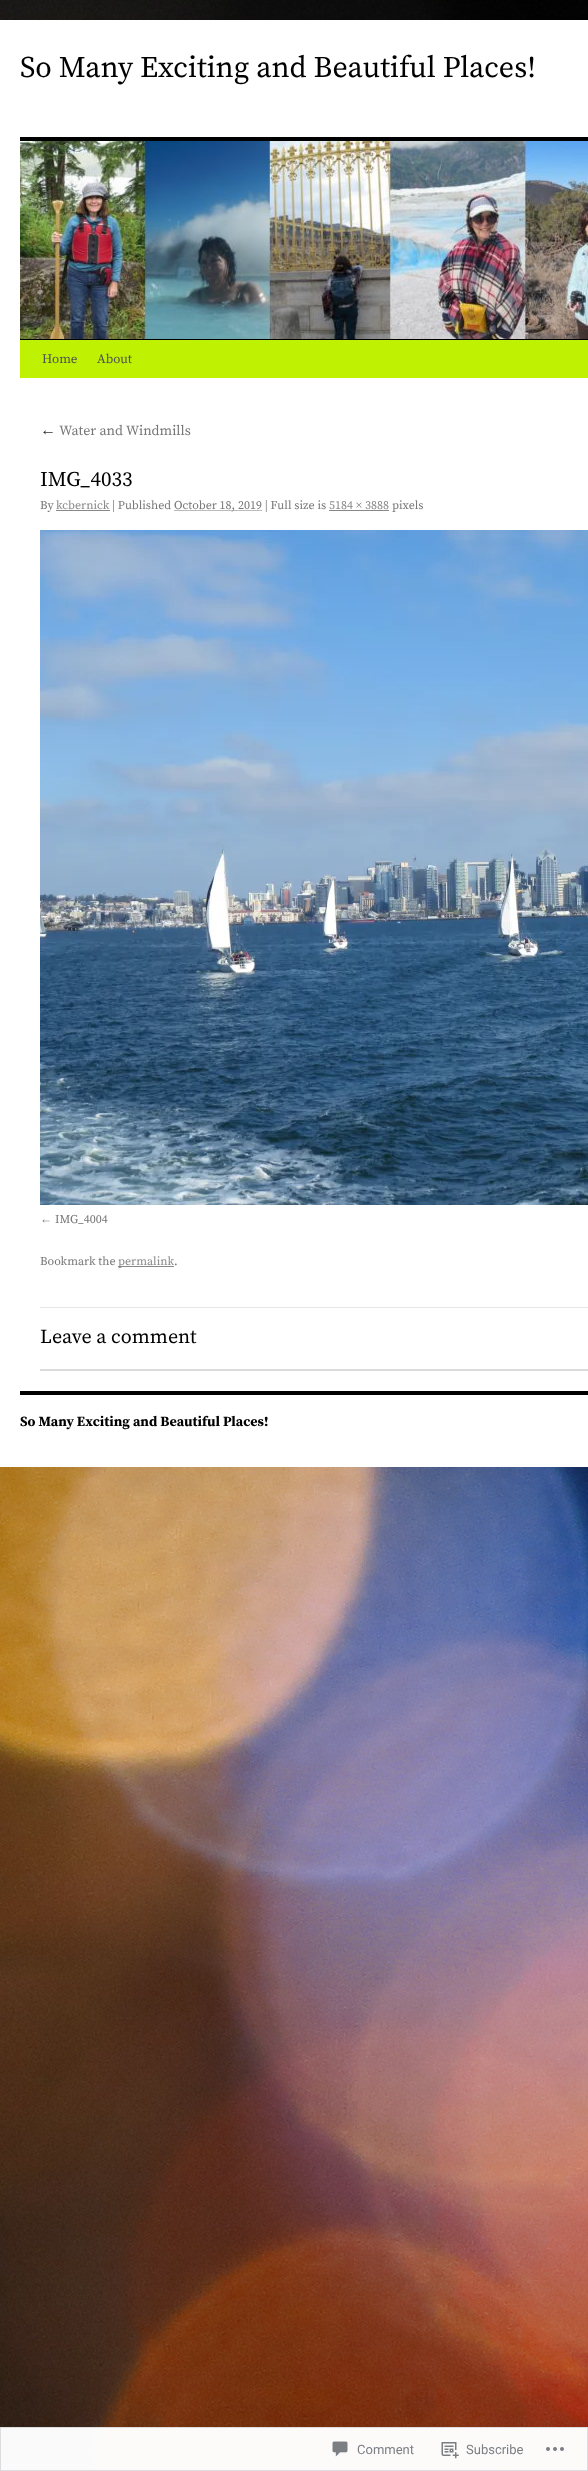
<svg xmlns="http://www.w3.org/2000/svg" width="588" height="2471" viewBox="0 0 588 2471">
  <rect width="100%" height="100%" fill="#ffffff"/>
  <image x="0" y="0" width="588" height="2470" href="img1.png"/>
  <rect x="0" y="20" width="588" height="1447" fill="#ffffff"/>
  <text x="20" y="77" font-family="Source Serif Pro" font-size="30" fill="#000000">So Many Exciting and Beautiful Places!</text>
  <rect x="20" y="137" width="568" height="4" fill="#000000"/>
  <rect x="20" y="339" width="568" height="1" fill="#000000"/>
  <image x="20" y="141" width="568" height="198" href="img2.png"/>
  <rect x="20" y="340" width="568" height="38" fill="#bef202"/>
  <text x="42" y="363" font-family="Source Serif Pro" font-size="13" fill="#515151">Home</text>
  <text x="97" y="363" font-family="Source Serif Pro" font-size="13" fill="#515151">About</text>
  <text x="40" y="435" font-family="Liberation Serif" font-size="16" fill="#333333">←</text>
  <text x="59" y="435" font-family="Source Serif Pro" font-size="14" fill="#777777">Water and Windmills</text>
  <text x="40" y="486" font-family="Source Serif Pro" font-size="21" fill="#000000">IMG_4033</text>
  <text x="40" y="509" font-family="Source Serif Pro" font-size="12" fill="#777777">By</text>
  <text x="56" y="509" font-family="Source Serif Pro" font-size="12" fill="#888888">kcbernick</text>
  <rect x="56" y="510" width="54" height="1" fill="#888888"/>
  <text x="112" y="509" font-family="Source Serif Pro" font-size="12" fill="#777777">| Published</text>
  <path d="M174.5 510.5H262.5" fill="none" stroke="#777777" stroke-dasharray="1 1"/>
  <text x="174" y="509" font-family="Source Serif Pro" font-size="12" fill="#777777">October 18, 2019 | Full size is</text>
  <text x="329" y="509" font-family="Source Serif Pro" font-size="12" fill="#888888">5184 × 3888</text>
  <rect x="329" y="510" width="60" height="1" fill="#888888"/>
  <text x="392" y="509" font-family="Source Serif Pro" font-size="12" fill="#777777">pixels</text>
  <image x="40" y="530" width="548" height="675" href="img3.png"/>
  <text x="40" y="1223" font-family="Liberation Serif" font-size="12" fill="#777777">←</text>
  <text x="55" y="1223" font-family="Source Serif Pro" font-size="12" fill="#777777">IMG_4004</text>
  <text x="40" y="1265" font-family="Source Serif Pro" font-size="12" fill="#777777">Bookmark the</text>
  <rect x="118" y="1266" width="56" height="1" fill="#888888"/>
  <text x="118" y="1265" font-family="Source Serif Pro" font-size="12" fill="#888888">permalink</text>
  <text x="174" y="1265" font-family="Source Serif Pro" font-size="12" fill="#777777">.</text>
  <rect x="40" y="1307" width="548" height="1" fill="#e7e7e7"/>
  <text x="40" y="1343" font-family="Source Serif Pro" font-size="20" fill="#000000">Leave a comment</text>
  <rect x="40" y="1369" width="548" height="2" fill="#dcdcde"/>
  <rect x="20" y="1391" width="568" height="4" fill="#000000"/>
  <text x="20" y="1426" font-family="Source Serif Pro" font-size="14" font-weight="bold" fill="#000000">So Many Exciting and Beautiful Places!</text>
  <rect x="0.5" y="2427.5" width="587" height="43" fill="#ffffff" fill-opacity="0.98" stroke="#dddddf"/>
  <image x="332" y="2441" width="16" height="16" href="img4.png"/>
  <text x="357" y="2454" font-family="Roboto" font-size="13" fill="#7b7f84">Comment</text>
  <image x="441" y="2442" width="18" height="17" href="img5.png"/>
  <text x="466" y="2454" font-family="Roboto" font-size="13" fill="#7b7f84">Subscribe</text>
  <image x="546" y="2447" width="18" height="4" href="img6.png"/>
</svg>
